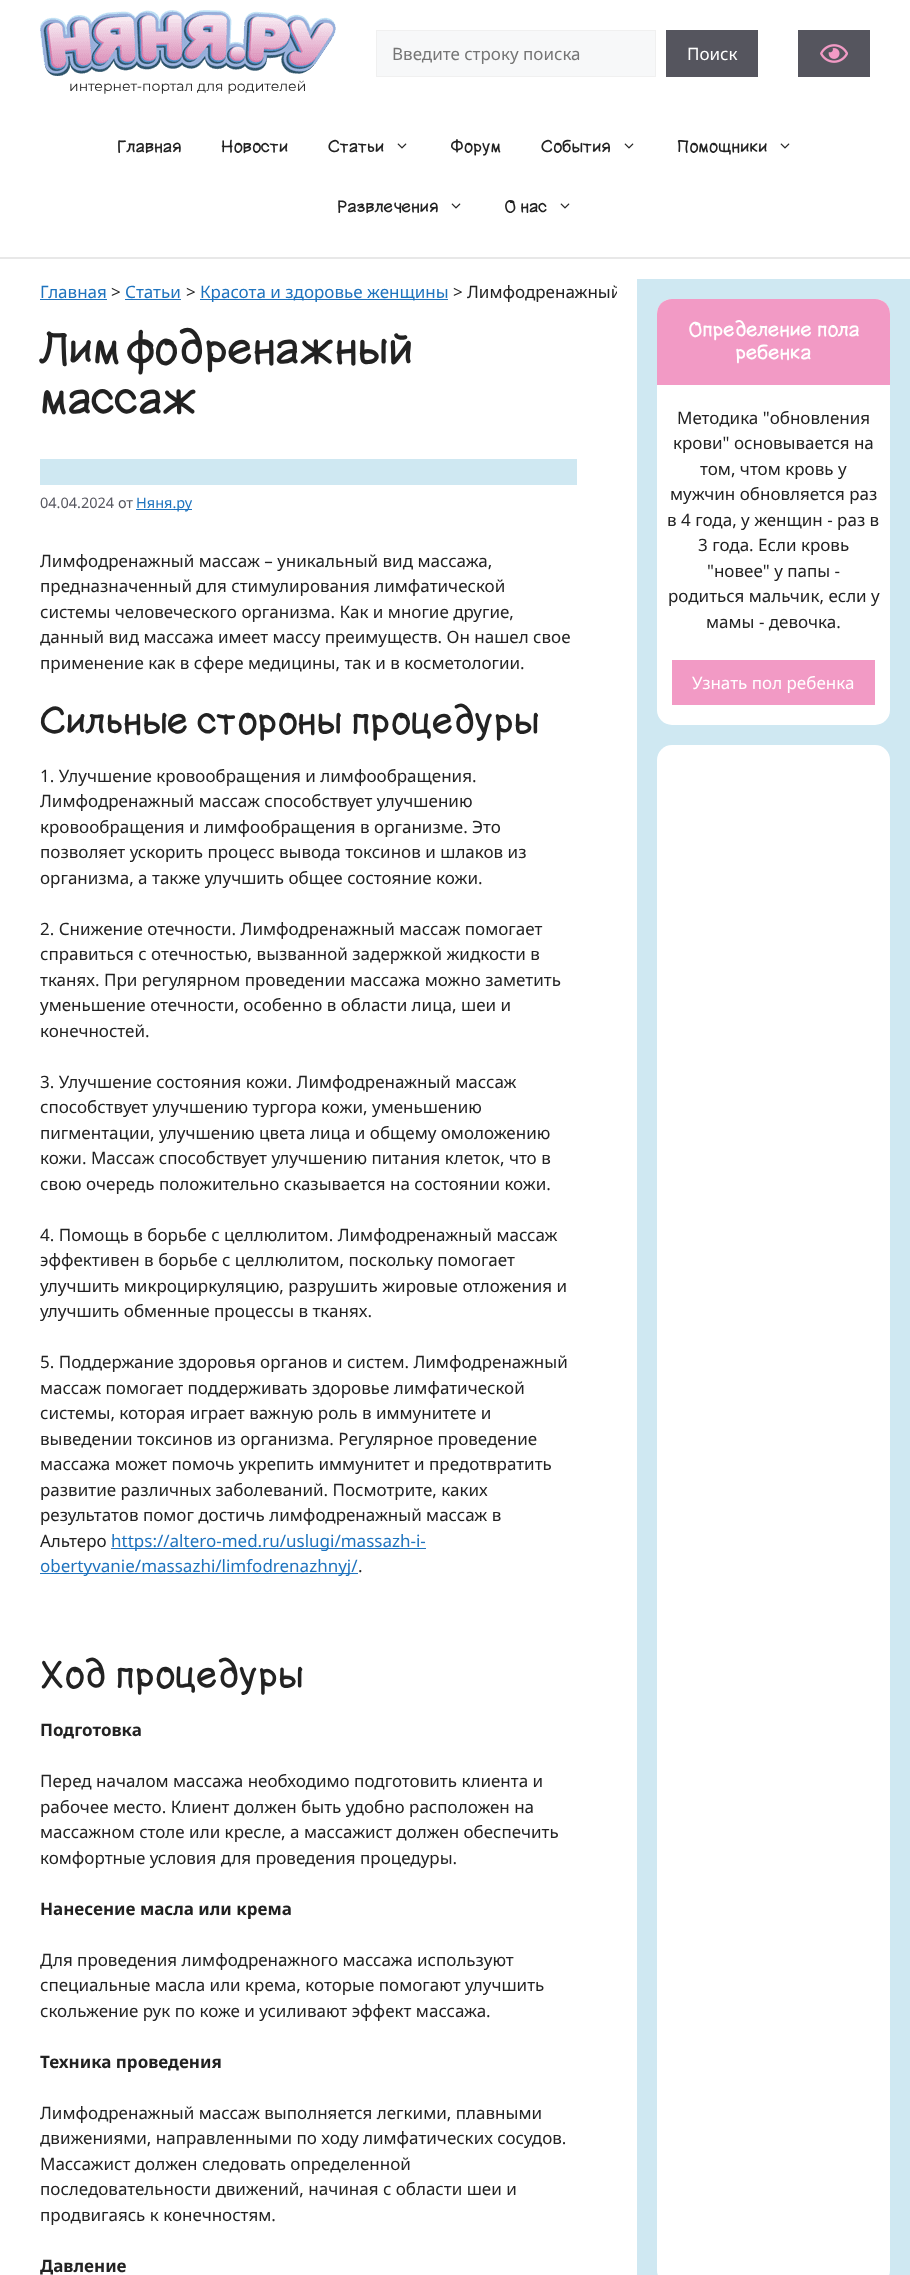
<svg xmlns="http://www.w3.org/2000/svg" width="910" height="2275" viewBox="0 0 910 2275">
  <defs>
    <clipPath id="clip1"><rect x="0" y="279" width="617" height="26"/></clipPath>
  </defs>
  <rect width="100%" height="100%" fill="#ffffff"/>
  <rect x="376.5" y="30.5" width="279" height="46" fill="#f7f8f9" stroke="#f0f0f0"/>
  <text x="392" y="60" font-family="Noto Sans" font-size="17" fill="#757575">Введите строку поиска</text>
  <rect x="666" y="30" width="92" height="47" fill="#55555e"/>
  <text x="687" y="60" font-family="Noto Sans" font-size="17" fill="#ffffff">Поиск</text>
  <rect x="798" y="30" width="72" height="47" fill="#55555e"/>
  <image x="820" y="44" width="28" height="19" href="img1.png"/>
  <image x="40" y="10" width="296" height="66" href="img2.png"/>
  <text x="69" y="91" font-family="Montserrat" font-size="14" fill="#222222">интернет-портал для родителей</text>
  <text x="117" y="152" font-family="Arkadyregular" font-size="16" fill="#222222">Главная</text>
  <text x="221" y="152" font-family="Arkadyregular" font-size="16" fill="#222222">Новости</text>
  <text x="328" y="152" font-family="Arkadyregular" font-size="16" fill="#222222">Статьи</text>
  <image x="397" y="143" width="10" height="6" href="img3.png"/>
  <text x="450" y="152" font-family="Arkadyregular" font-size="16" fill="#222222">Форум</text>
  <text x="541" y="152" font-family="Arkadyregular" font-size="16" fill="#222222">События</text>
  <image x="624" y="143" width="10" height="6" href="img3.png"/>
  <text x="677" y="152" font-family="Arkadyregular" font-size="16" fill="#222222">Помощники</text>
  <image x="780" y="143" width="10" height="6" href="img3.png"/>
  <text x="337" y="212" font-family="Arkadyregular" font-size="16" fill="#222222">Развлечения</text>
  <image x="451" y="203" width="10" height="6" href="img3.png"/>
  <text x="504" y="212" font-family="Arkadyregular" font-size="16" fill="#222222">О нас</text>
  <image x="560" y="203" width="10" height="6" href="img3.png"/>
  <rect x="0" y="257" width="910" height="2" fill="#e8e8e8"/>
  <text x="40" y="298" font-family="Noto Sans" font-size="17" fill="#1e73be">Главная</text>
  <rect x="40" y="299" width="67" height="1" fill="#1e73be"/>
  <text x="111" y="298" font-family="Noto Sans" font-size="17" fill="#222222">&gt;</text>
  <text x="125" y="298" font-family="Noto Sans" font-size="17" fill="#1e73be">Статьи</text>
  <rect x="125" y="299" width="56" height="1" fill="#1e73be"/>
  <text x="186" y="298" font-family="Noto Sans" font-size="17" fill="#222222">&gt;</text>
  <rect x="200" y="299" width="248" height="1" fill="#1e73be"/>
  <text x="200" y="298" font-family="Noto Sans" font-size="17" fill="#1e73be">Красота и здоровье женщины</text>
  <text x="453" y="298" font-family="Noto Sans" font-size="17" fill="#222222">&gt;</text>
  <g clip-path="url(#clip1)">
    <text x="467" y="298" font-family="Noto Sans" font-size="17" fill="#222222">Лимфодренажный</text>
  </g>
  <text x="40" y="363" font-family="Arkadyregular" font-size="42" fill="#222222">Лимфодренажный</text>
  <text x="40" y="413" font-family="Arkadyregular" font-size="42" fill="#222222">массаж</text>
  <rect x="40" y="459" width="537" height="26" fill="#cfe8f2"/>
  <text x="40" y="508" font-family="Noto Sans" font-size="14.5" fill="#575760">04.04.2024 от</text>
  <rect x="136" y="509" width="56" height="1" fill="#1e73be"/>
  <text x="136" y="508" font-family="Noto Sans" font-size="14.5" fill="#1e73be">Няня.ру</text>
  <text x="40" y="567" font-family="Noto Sans" font-size="17" fill="#222222">Лимфодренажный массаж – уникальный вид массажа,</text>
  <text x="40" y="592" font-family="Noto Sans" font-size="17" fill="#222222">предназначенный для стимулирования лимфатической</text>
  <text x="40" y="618" font-family="Noto Sans" font-size="17" fill="#222222">системы человеческого организма. Как и многие другие,</text>
  <text x="40" y="643" font-family="Noto Sans" font-size="17" fill="#222222">данный вид массажа имеет массу преимуществ. Он нашел свое</text>
  <text x="40" y="669" font-family="Noto Sans" font-size="17" fill="#222222">применение как в сфере медицины, так и в косметологии.</text>
  <text x="40" y="733" font-family="Arkadyregular" font-size="35" fill="#222222">Сильные стороны процедуры</text>
  <text x="40" y="782" font-family="Noto Sans" font-size="17" fill="#222222">1. Улучшение кровообращения и лимфообращения.</text>
  <text x="40" y="807" font-family="Noto Sans" font-size="17" fill="#222222">Лимфодренажный массаж способствует улучшению</text>
  <text x="40" y="833" font-family="Noto Sans" font-size="17" fill="#222222">кровообращения и лимфообращения в организме. Это</text>
  <text x="40" y="858" font-family="Noto Sans" font-size="17" fill="#222222">позволяет ускорить процесс вывода токсинов и шлаков из</text>
  <text x="40" y="884" font-family="Noto Sans" font-size="17" fill="#222222">организма, а также улучшить общее состояние кожи.</text>
  <text x="40" y="935" font-family="Noto Sans" font-size="17" fill="#222222">2. Снижение отечности. Лимфодренажный массаж помогает</text>
  <text x="40" y="960" font-family="Noto Sans" font-size="17" fill="#222222">справиться с отечностью, вызванной задержкой жидкости в</text>
  <text x="40" y="986" font-family="Noto Sans" font-size="17" fill="#222222">тканях. При регулярном проведении массажа можно заметить</text>
  <text x="40" y="1011" font-family="Noto Sans" font-size="17" fill="#222222">уменьшение отечности, особенно в области лица, шеи и</text>
  <text x="40" y="1037" font-family="Noto Sans" font-size="17" fill="#222222">конечностей.</text>
  <text x="40" y="1088" font-family="Noto Sans" font-size="17" fill="#222222">3. Улучшение состояния кожи. Лимфодренажный массаж</text>
  <text x="40" y="1113" font-family="Noto Sans" font-size="17" fill="#222222">способствует улучшению тургора кожи, уменьшению</text>
  <text x="40" y="1139" font-family="Noto Sans" font-size="17" fill="#222222">пигментации, улучшению цвета лица и общему омоложению</text>
  <text x="40" y="1164" font-family="Noto Sans" font-size="17" fill="#222222">кожи. Массаж способствует улучшению питания клеток, что в</text>
  <text x="40" y="1190" font-family="Noto Sans" font-size="17" fill="#222222">свою очередь положительно сказывается на состоянии кожи.</text>
  <text x="40" y="1241" font-family="Noto Sans" font-size="17" fill="#222222">4. Помощь в борьбе с целлюлитом. Лимфодренажный массаж</text>
  <text x="40" y="1266" font-family="Noto Sans" font-size="17" fill="#222222">эффективен в борьбе с целлюлитом, поскольку помогает</text>
  <text x="40" y="1292" font-family="Noto Sans" font-size="17" fill="#222222">улучшить микроциркуляцию, разрушить жировые отложения и</text>
  <text x="40" y="1317" font-family="Noto Sans" font-size="17" fill="#222222">улучшить обменные процессы в тканях.</text>
  <text x="40" y="1368" font-family="Noto Sans" font-size="17" fill="#222222">5. Поддержание здоровья органов и систем. Лимфодренажный</text>
  <text x="40" y="1394" font-family="Noto Sans" font-size="17" fill="#222222">массаж помогает поддерживать здоровье лимфатической</text>
  <text x="40" y="1419" font-family="Noto Sans" font-size="17" fill="#222222">системы, которая играет важную роль в иммунитете и</text>
  <text x="40" y="1445" font-family="Noto Sans" font-size="17" fill="#222222">выведении токсинов из организма. Регулярное проведение</text>
  <text x="40" y="1470" font-family="Noto Sans" font-size="17" fill="#222222">массажа может помочь укрепить иммунитет и предотвратить</text>
  <text x="40" y="1496" font-family="Noto Sans" font-size="17" fill="#222222">развитие различных заболеваний. Посмотрите, каких</text>
  <text x="40" y="1521" font-family="Noto Sans" font-size="17" fill="#222222">результатов помог достичь лимфодренажный массаж в</text>
  <text x="40" y="1547" font-family="Noto Sans" font-size="17" fill="#222222">Альтеро</text>
  <rect x="111" y="1548" width="315" height="1" fill="#1e73be"/>
  <text x="111" y="1547" font-family="Noto Sans" font-size="17" fill="#1e73be">https://altero-med.ru/uslugi/massazh-i-</text>
  <rect x="40" y="1573" width="318" height="1" fill="#1e73be"/>
  <text x="40" y="1572" font-family="Noto Sans" font-size="17" fill="#1e73be">obertyvanie/massazhi/limfodrenazhnyj/</text>
  <text x="358" y="1572" font-family="Noto Sans" font-size="17" fill="#222222">.</text>
  <text x="40" y="1687" font-family="Arkadyregular" font-size="35" fill="#222222">Ход процедуры</text>
  <text x="40" y="1736" font-family="Noto Sans" font-size="17" font-weight="bold" fill="#222222">Подготовка</text>
  <text x="40" y="1787" font-family="Noto Sans" font-size="17" fill="#222222">Перед началом массажа необходимо подготовить клиента и</text>
  <text x="40" y="1813" font-family="Noto Sans" font-size="17" fill="#222222">рабочее место. Клиент должен быть удобно расположен на</text>
  <text x="40" y="1838" font-family="Noto Sans" font-size="17" fill="#222222">массажном столе или кресле, а массажист должен обеспечить</text>
  <text x="40" y="1864" font-family="Noto Sans" font-size="17" fill="#222222">комфортные условия для проведения процедуры.</text>
  <text x="40" y="1915" font-family="Noto Sans" font-size="17" font-weight="bold" fill="#222222">Нанесение масла или крема</text>
  <text x="40" y="1966" font-family="Noto Sans" font-size="17" fill="#222222">Для проведения лимфодренажного массажа используют</text>
  <text x="40" y="1991" font-family="Noto Sans" font-size="17" fill="#222222">специальные масла или крема, которые помогают улучшить</text>
  <text x="40" y="2017" font-family="Noto Sans" font-size="17" fill="#222222">скольжение рук по коже и усиливают эффект массажа.</text>
  <text x="40" y="2068" font-family="Noto Sans" font-size="17" font-weight="bold" fill="#222222">Техника проведения</text>
  <text x="40" y="2119" font-family="Noto Sans" font-size="17" fill="#222222">Лимфодренажный массаж выполняется легкими, плавными</text>
  <text x="40" y="2144" font-family="Noto Sans" font-size="17" fill="#222222">движениями, направленными по ходу лимфатических сосудов.</text>
  <text x="40" y="2170" font-family="Noto Sans" font-size="17" fill="#222222">Массажист должен следовать определенной</text>
  <text x="40" y="2195" font-family="Noto Sans" font-size="17" fill="#222222">последовательности движений, начиная с области шеи и</text>
  <text x="40" y="2221" font-family="Noto Sans" font-size="17" fill="#222222">продвигаясь к конечностям.</text>
  <text x="40" y="2272" font-family="Noto Sans" font-size="17" font-weight="bold" fill="#222222">Давление</text>
  <rect x="637" y="279" width="273" height="1996" fill="#cfe8f2"/>
  <rect x="657" y="299" width="233" height="426" rx="15" fill="#ffffff"/>
  <path d="M672 299H875C883.5 299 890 305.5 890 314V385H657V314C657 305.5 663.5 299 672 299Z" fill="#f29ac5"/>
  <text x="688" y="336" font-family="Arkadyregular" font-size="19" fill="#ffffff">Определение пола</text>
  <text x="735" y="359" font-family="Arkadyregular" font-size="19" fill="#ffffff">ребенка</text>
  <text x="677" y="424" font-family="Noto Sans" font-size="17" fill="#222222">Методика "обновления</text>
  <text x="673" y="449" font-family="Noto Sans" font-size="17" fill="#222222">крови" основывается на</text>
  <text x="700" y="475" font-family="Noto Sans" font-size="17" fill="#222222">том, чтом кровь у</text>
  <text x="670" y="500" font-family="Noto Sans" font-size="17" fill="#222222">мужчин обновляется раз</text>
  <text x="667" y="526" font-family="Noto Sans" font-size="17" fill="#222222">в 4 года, у женщин - раз в</text>
  <text x="698" y="551" font-family="Noto Sans" font-size="17" fill="#222222">3 года. Если кровь</text>
  <text x="707" y="577" font-family="Noto Sans" font-size="17" fill="#222222">"новее" у папы -</text>
  <text x="668" y="602" font-family="Noto Sans" font-size="17" fill="#222222">родиться мальчик, если у</text>
  <text x="706" y="628" font-family="Noto Sans" font-size="17" fill="#222222">мамы - девочка.</text>
  <rect x="672" y="660" width="203" height="45" fill="#f29ac5"/>
  <text x="692" y="689" font-family="Noto Sans" font-size="17" fill="#ffffff">Узнать пол ребенка</text>
  <rect x="657" y="745" width="233" height="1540" rx="15" fill="#ffffff"/>
</svg>
